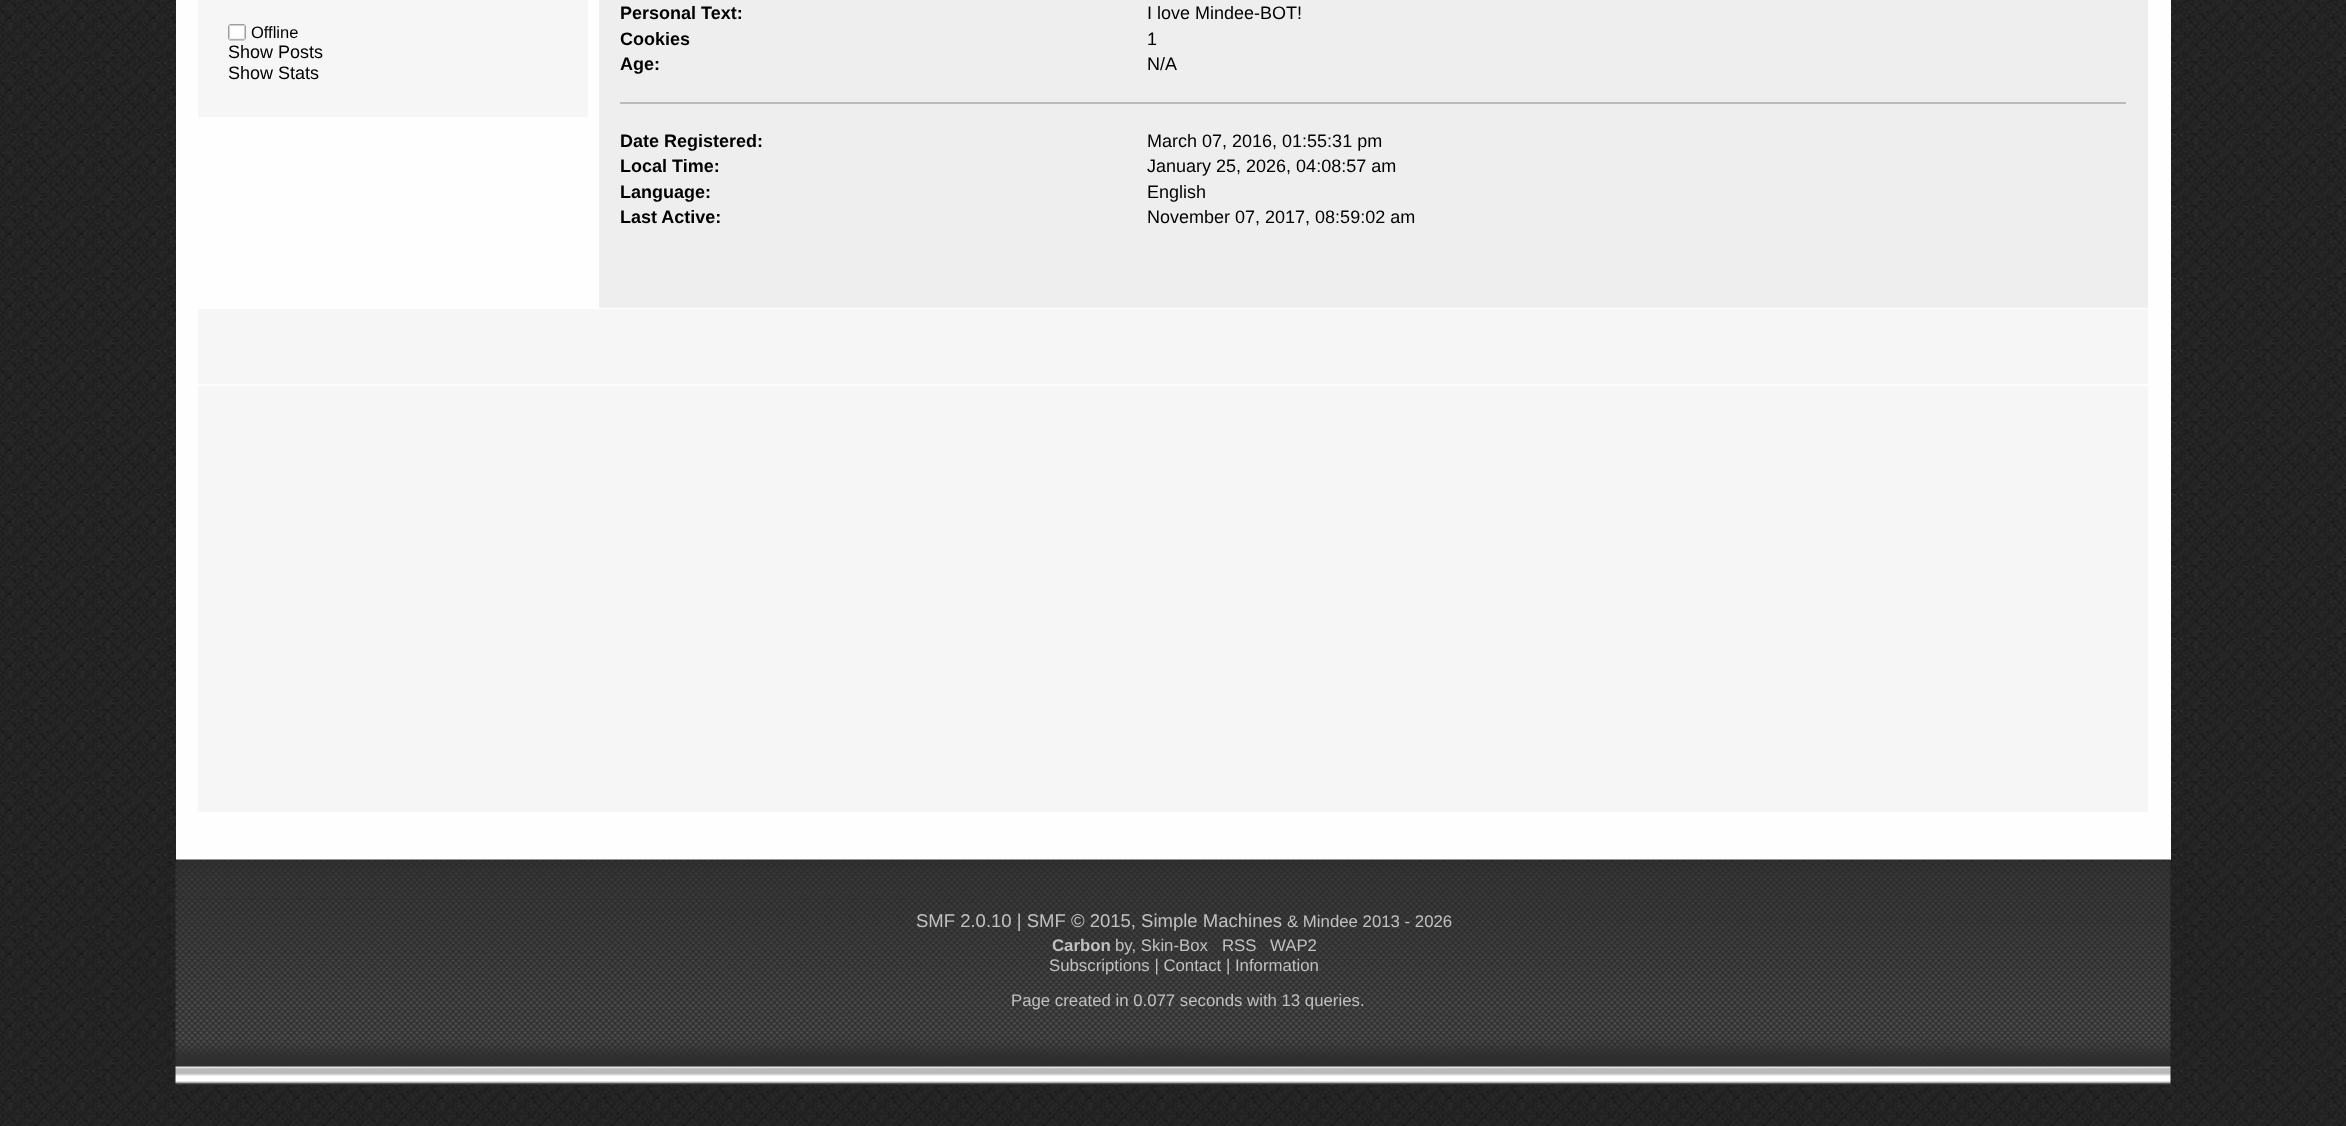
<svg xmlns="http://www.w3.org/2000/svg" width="2346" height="1126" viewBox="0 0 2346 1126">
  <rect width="100%" height="100%" fill="#ffffff"/>
  <image x="0" y="0" width="2346" height="1126" href="img1.png"/>
  <rect x="176" y="0" width="1995" height="860" fill="#fefefe"/>
  <rect x="198" y="0" width="390" height="117" fill="#f6f6f6"/>
  <image x="228" y="24" width="18" height="17" href="img2.png"/>
  <text x="251" y="38" font-family="Liberation Sans" font-size="16.5" fill="#000000">Offline</text>
  <text x="228" y="58" font-family="Liberation Sans" font-size="18" fill="#000000">Show Posts</text>
  <text x="228" y="79" font-family="Liberation Sans" font-size="18" fill="#000000">Show Stats</text>
  <rect x="599" y="0" width="1549" height="308" fill="#eeeeee"/>
  <rect x="620" y="102" width="1506" height="2" fill="#bbbbbb"/>
  <text x="620" y="19" font-family="Liberation Sans" font-size="18" font-weight="bold" fill="#000000">Personal Text:</text>
  <text x="1147" y="19" font-family="Liberation Sans" font-size="18" fill="#000000">I love Mindee-BOT!</text>
  <text x="620" y="45" font-family="Liberation Sans" font-size="18" font-weight="bold" fill="#000000">Cookies</text>
  <text x="1147" y="45" font-family="Liberation Sans" font-size="18" fill="#000000">1</text>
  <text x="620" y="70" font-family="Liberation Sans" font-size="18" font-weight="bold" fill="#000000">Age:</text>
  <text x="1147" y="70" font-family="Liberation Sans" font-size="18" fill="#000000">N/A</text>
  <text x="620" y="147" font-family="Liberation Sans" font-size="18" font-weight="bold" fill="#000000">Date Registered:</text>
  <text x="1147" y="147" font-family="Liberation Sans" font-size="18" fill="#000000">March 07, 2016, 01:55:31 pm</text>
  <text x="620" y="172" font-family="Liberation Sans" font-size="18" font-weight="bold" fill="#000000">Local Time:</text>
  <text x="1147" y="172" font-family="Liberation Sans" font-size="18" fill="#000000">January 25, 2026, 04:08:57 am</text>
  <text x="620" y="198" font-family="Liberation Sans" font-size="18" font-weight="bold" fill="#000000">Language:</text>
  <text x="1147" y="198" font-family="Liberation Sans" font-size="18" fill="#000000">English</text>
  <text x="620" y="223" font-family="Liberation Sans" font-size="18" font-weight="bold" fill="#000000">Last Active:</text>
  <text x="1147" y="223" font-family="Liberation Sans" font-size="18" fill="#000000">November 07, 2017, 08:59:02 am</text>
  <rect x="198" y="309" width="1950" height="75" fill="#f6f6f6"/>
  <rect x="198" y="386" width="1950" height="426" fill="#f6f6f6"/>
  <image x="175" y="859" width="1996" height="226" href="img3.png"/>
  <text x="916" y="927" font-family="Liberation Sans" font-size="18.5" fill="#c1c1c1">SMF 2.0.10 | SMF © 2015, Simple Machines</text>
  <text x="1287" y="927" font-family="Liberation Sans" font-size="16.8" fill="#c1c1c1">&amp; Mindee 2013 - 2026</text>
  <text x="1052" y="951" font-family="Liberation Sans" font-size="16.8" font-weight="bold" fill="#c1c1c1">Carbon</text>
  <text x="1115" y="951" font-family="Liberation Sans" font-size="16.8" fill="#c1c1c1">by, Skin-Box</text>
  <text x="1222" y="951" font-family="Liberation Sans" font-size="16.8" fill="#c1c1c1">RSS</text>
  <text x="1270" y="951" font-family="Liberation Sans" font-size="16.8" fill="#c1c1c1">WAP2</text>
  <text x="1049" y="971" font-family="Liberation Sans" font-size="16.8" fill="#c1c1c1">Subscriptions | Contact | Information</text>
  <text x="1011" y="1006" font-family="Liberation Sans" font-size="16.8" fill="#c1c1c1">Page created in 0.077 seconds with 13 queries.</text>
</svg>
